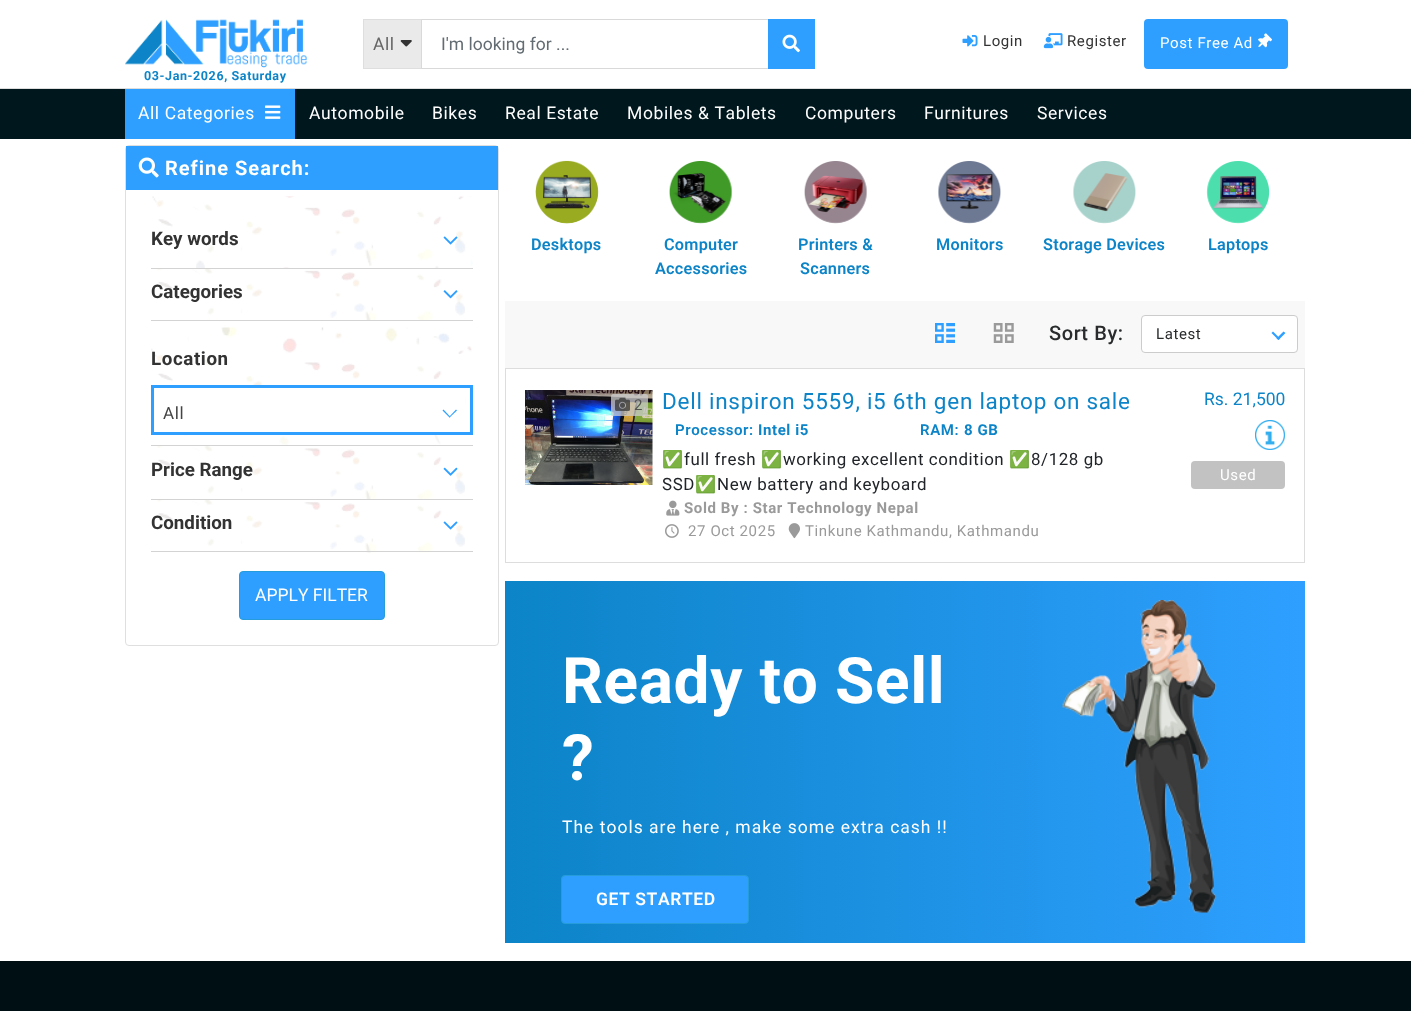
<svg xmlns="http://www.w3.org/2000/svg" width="1411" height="1011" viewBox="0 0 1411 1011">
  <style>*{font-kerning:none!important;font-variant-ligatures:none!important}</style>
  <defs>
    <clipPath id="clip1"><rect x="663" y="446" width="490" height="52"/></clipPath>
    <linearGradient id="g1" gradientUnits="userSpaceOnUse" x1="505" y1="762" x2="1305" y2="762"><stop offset="0" stop-color="#0c84c7"/><stop offset="1" stop-color="#2e9fff"/></linearGradient>
  </defs>
  <rect width="100%" height="100%" fill="#ffffff"/>
  <rect x="0" y="88" width="1411" height="1" fill="#dddddd"/>
  <rect x="364" y="20" width="57" height="48" fill="#eaeaea"/>
  <rect x="363" y="19" width="58" height="1" fill="#dedede"/>
  <rect x="363" y="68" width="58" height="1" fill="#dedede"/>
  <rect x="363" y="19" width="1" height="50" fill="#dedede"/>
  <text x="373" y="50" font-family="Roboto" font-size="17.5" letter-spacing="0.6" fill="#666666">All</text>
  <image x="400" y="40" width="12" height="7" href="img1.png"/>
  <path d="M421 19H768V20H422Z" fill="#d9d9d9"/>
  <path d="M768 69H421L422 68H768Z" fill="#d9d9d9"/>
  <path d="M421 69V19L422 20V68Z" fill="#000000" fill-opacity="0.15"/>
  <text x="441" y="50" font-family="Roboto" font-size="17.5" fill="#636c72">I'm looking for ...</text>
  <rect x="768" y="19" width="47" height="50" fill="#2e9fff"/>
  <image x="782" y="34" width="18" height="19" href="img2.png"/>
  <image x="962" y="35" width="16" height="12" href="img3.png"/>
  <text x="983" y="46" font-family="Roboto" font-size="15" letter-spacing="0.6" fill="#333333">Login</text>
  <image x="1043" y="33" width="20" height="16" href="img4.png"/>
  <text x="1067" y="46" font-family="Roboto" font-size="15" letter-spacing="0.6" fill="#333333">Register</text>
  <rect x="1144" y="19" width="144" height="50" rx="4" fill="#2e9fff"/>
  <text x="1160" y="48" font-family="Roboto" font-size="15" letter-spacing="0.6" fill="#ffffff">Post Free Ad</text>
  <image x="1258" y="33" width="14" height="15" href="img5.png"/>
  <image x="125" y="19" width="182" height="49" href="img6.png"/>
  <text x="144" y="80" font-family="Roboto" font-size="12.5" font-weight="bold" letter-spacing="0.6" fill="#0c84c7">03-Jan-2026, Saturday</text>
  <rect x="0" y="89" width="1411" height="50" fill="#00171d"/>
  <rect x="125" y="89" width="170" height="50" fill="#2e9fff"/>
  <text x="138" y="119" font-family="Roboto" font-size="17.5" letter-spacing="0.6" fill="#ffffff">All Categories</text>
  <image x="265" y="105" width="16" height="14" href="img7.png"/>
  <text x="309" y="119" font-family="Roboto" font-size="17.5" letter-spacing="0.6" fill="#ffffff">Automobile</text>
  <text x="432" y="119" font-family="Roboto" font-size="17.5" letter-spacing="0.6" fill="#ffffff">Bikes</text>
  <text x="505" y="119" font-family="Roboto" font-size="17.5" letter-spacing="0.6" fill="#ffffff">Real Estate</text>
  <text x="627" y="119" font-family="Roboto" font-size="17.5" letter-spacing="0.6" fill="#ffffff">Mobiles &amp; Tablets</text>
  <text x="805" y="119" font-family="Roboto" font-size="17.5" letter-spacing="0.6" fill="#ffffff">Computers</text>
  <text x="924" y="119" font-family="Roboto" font-size="17.5" letter-spacing="0.6" fill="#ffffff">Furnitures</text>
  <text x="1037" y="119" font-family="Roboto" font-size="17.5" letter-spacing="0.6" fill="#ffffff">Services</text>
  <rect x="125.5" y="145.5" width="373" height="500" rx="3.5" fill="none" stroke="#dfdfdf"/>
  <rect x="126" y="146" width="372" height="44" fill="#2e9fff"/>
  <image x="138" y="157" width="21" height="21" href="img8.png"/>
  <text x="165" y="175" font-family="Roboto" font-size="20" font-weight="bold" letter-spacing="1" fill="#ffffff">Refine Search:</text>
  <image x="152" y="196" width="321" height="72" href="img9.png"/>
  <rect x="151" y="268" width="322" height="1" fill="#d3d3d3"/>
  <text x="151" y="245" font-family="Roboto" font-size="18.75" font-weight="bold" fill="#333333">Key words</text>
  <image x="443" y="236" width="15" height="9" href="img10.png"/>
  <image x="157" y="269" width="308" height="51" href="img11.png"/>
  <rect x="151" y="320" width="322" height="1" fill="#d3d3d3"/>
  <text x="151" y="298" font-family="Roboto" font-size="18.75" font-weight="bold" fill="#333333">Categories</text>
  <image x="443" y="290" width="15" height="9" href="img12.png"/>
  <image x="151" y="327" width="321" height="118" href="img13.png"/>
  <rect x="151" y="445" width="322" height="1" fill="#d3d3d3"/>
  <text x="151" y="365" font-family="Roboto" font-size="18.75" font-weight="bold" letter-spacing="0.6" fill="#333333">Location</text>
  <rect x="182" y="388" width="283" height="44" fill="#ffffff"/>
  <rect x="152.5" y="386.5" width="319" height="47" fill="none" stroke="#2e9fff" stroke-width="3"/>
  <text x="163" y="419" font-family="Roboto" font-size="17" letter-spacing="0.6" fill="#444444">All</text>
  <path d="M456 409.5L457 410.5L449.5 417.5L449 417Z" fill="#2e9fff"/>
  <path d="M443.5 409.5L450.5 417L449.5 417.5L442.5 410.5Z" fill="#2e9fff"/>
  <image x="157" y="446" width="308" height="53" href="img14.png"/>
  <rect x="151" y="499" width="322" height="1" fill="#d3d3d3"/>
  <text x="151" y="476" font-family="Roboto" font-size="18.75" font-weight="bold" fill="#333333">Price Range</text>
  <image x="443" y="467" width="15" height="9" href="img15.png"/>
  <image x="157" y="500" width="308" height="53" href="img16.png"/>
  <rect x="151" y="551" width="322" height="1" fill="#d3d3d3"/>
  <text x="151" y="529" font-family="Roboto" font-size="18.75" font-weight="bold" fill="#333333">Condition</text>
  <image x="443" y="521" width="15" height="9" href="img17.png"/>
  <rect x="239.5" y="571.5" width="145" height="48" rx="3.5" fill="#2e9fff" stroke="#269cda"/>
  <text x="255" y="601" font-family="Roboto" font-size="17.5" fill="#ffffff">APPLY FILTER</text>
  <image x="535" y="160" width="64" height="64" href="img18.png"/>
  <text x="531" y="250" font-family="Roboto" font-size="16.25" font-weight="600" letter-spacing="0.25" fill="#0c84c7">Desktops</text>
  <image x="669" y="161" width="64" height="63" href="img19.png"/>
  <text x="664" y="250" font-family="Roboto" font-size="16.25" font-weight="600" letter-spacing="0.25" fill="#0c84c7">Computer</text>
  <text x="655" y="274" font-family="Roboto" font-size="16.25" font-weight="600" letter-spacing="0.25" fill="#0c84c7">Accessories</text>
  <image x="804" y="161" width="63" height="63" href="img20.png"/>
  <text x="798" y="250" font-family="Roboto" font-size="16.25" font-weight="600" letter-spacing="0.25" fill="#0c84c7">Printers &amp;</text>
  <text x="800" y="274" font-family="Roboto" font-size="16.25" font-weight="600" letter-spacing="0.25" fill="#0c84c7">Scanners</text>
  <image x="938" y="161" width="63" height="63" href="img21.png"/>
  <text x="936" y="250" font-family="Roboto" font-size="16.25" font-weight="600" letter-spacing="0.25" fill="#0c84c7">Monitors</text>
  <image x="1073" y="161" width="63" height="63" href="img22.png"/>
  <text x="1043" y="250" font-family="Roboto" font-size="16.25" font-weight="600" letter-spacing="0.25" fill="#0c84c7">Storage Devices</text>
  <image x="1206" y="161" width="64" height="63" href="img23.png"/>
  <text x="1208" y="250" font-family="Roboto" font-size="16.25" font-weight="600" letter-spacing="0.25" fill="#0c84c7">Laptops</text>
  <rect x="505" y="301" width="800" height="67" fill="#f8f8f8"/>
  <image x="935" y="323" width="20" height="20" href="img24.png"/>
  <image x="993" y="323" width="21" height="20" href="img25.png"/>
  <text x="1049" y="340" font-family="Roboto" font-size="20" font-weight="500" letter-spacing="0.6" fill="#292b2c">Sort By:</text>
  <rect x="1141.5" y="315.5" width="156" height="37" rx="3.5" fill="#ffffff" stroke="#cccccc"/>
  <text x="1156" y="339" font-family="Roboto" font-size="15" letter-spacing="0.6" fill="#292b2c">Latest</text>
  <path d="M1283.5 331.5L1285.5 333L1278.5 340L1276.5 338.5Z" fill="#2e9fff"/>
  <path d="M1273 331.5L1280 338.5L1278.5 340L1271.5 333Z" fill="#2e9fff"/>
  <rect x="505.5" y="368.5" width="799" height="194" fill="none" stroke="#dddddd"/>
  <image x="525" y="390" width="128" height="95" href="img26.png"/>
  <rect x="611" y="394" width="37" height="22" rx="2.5" fill="#cccccc" fill-opacity="0.75"/>
  <image x="615" y="397" width="15" height="14" href="img27.png"/>
  <text x="634" y="410" font-family="Roboto" font-size="15" letter-spacing="0.6" fill="#51534f">2</text>
  <text x="662" y="409" font-family="Roboto" font-size="22.5" letter-spacing="0.75" fill="#0c84c7">Dell inspiron 5559, i5 6th gen laptop on sale</text>
  <text x="675" y="435" font-family="Roboto" font-size="15" font-weight="600" letter-spacing="0.6" fill="#0c84c7">Processor:</text>
  <text x="758" y="435" font-family="Roboto" font-size="15" font-weight="bold" letter-spacing="0.6" fill="#0c84c7">Intel i5</text>
  <text x="920" y="435" font-family="Roboto" font-size="15" font-weight="600" letter-spacing="0.6" fill="#0c84c7">RAM:</text>
  <text x="964" y="435" font-family="Roboto" font-size="15" font-weight="bold" letter-spacing="0.6" fill="#0c84c7">8 GB</text>
  <g clip-path="url(#clip1)">
    <text x="662" y="465" font-family="Noto Color Emoji" font-size="16.9" letter-spacing="0.6" fill="#212529">✅</text>
  </g>
  <text x="684" y="465" font-family="Roboto" font-size="16.9" letter-spacing="0.6" fill="#212529">full fresh</text>
  <text x="761" y="465" font-family="Noto Color Emoji" font-size="16.9" letter-spacing="0.6" fill="#212529">✅</text>
  <text x="783" y="465" font-family="Roboto" font-size="16.9" letter-spacing="0.6" fill="#212529">working excellent condition</text>
  <text x="1009" y="465" font-family="Noto Color Emoji" font-size="16.9" letter-spacing="0.6" fill="#212529">✅</text>
  <text x="1031" y="465" font-family="Roboto" font-size="16.9" letter-spacing="0.6" fill="#212529">8/128 gb</text>
  <text x="662" y="490" font-family="Roboto" font-size="16.9" letter-spacing="0.6" fill="#212529">SSD</text>
  <text x="695" y="490" font-family="Noto Color Emoji" font-size="16.9" letter-spacing="0.6" fill="#212529">✅</text>
  <text x="717" y="490" font-family="Roboto" font-size="16.9" letter-spacing="0.6" fill="#212529">New battery and keyboard</text>
  <image x="666" y="500" width="14" height="16" href="img28.png"/>
  <text x="684" y="513" font-family="Roboto" font-size="15" font-weight="bold" letter-spacing="0.6" fill="#9a9a9a">Sold By : Star Technology Nepal</text>
  <image x="665" y="524" width="14" height="14" href="img29.png"/>
  <text x="688" y="536" font-family="Roboto" font-size="15" letter-spacing="0.6" fill="#9a9a9a">27 Oct 2025</text>
  <image x="788" y="523" width="12" height="16" href="img30.png"/>
  <text x="805" y="536" font-family="Roboto" font-size="15" letter-spacing="0.6" fill="#9a9a9a">Tinkune Kathmandu, Kathmandu</text>
  <text x="1204" y="405" font-family="Roboto" font-size="17.5" fill="#0c84c7">Rs. 21,500</text>
  <image x="1255" y="420" width="30" height="30" href="img31.png"/>
  <rect x="1191" y="461" width="94" height="28" rx="4" fill="#c2c2c2"/>
  <text x="1220" y="480" font-family="Roboto" font-size="15" letter-spacing="0.6" fill="#ffffff">Used</text>
  <rect x="505" y="581" width="800" height="362" fill="url(#g1)"/>
  <text x="562" y="703" font-family="Roboto" font-size="64" font-weight="bold" letter-spacing="0.6" fill="#ffffff">Ready to Sell</text>
  <text x="562" y="780" font-family="Roboto" font-size="64" font-weight="bold" letter-spacing="0.6" fill="#ffffff">?</text>
  <text x="562" y="833" font-family="Roboto" font-size="17.5" letter-spacing="1" fill="#ffffff">The tools are here , make some extra cash !!</text>
  <rect x="561.5" y="875.5" width="187" height="48" rx="3.5" fill="#2e9fff" stroke="#269cda"/>
  <text x="596" y="905" font-family="Roboto" font-size="17.5" font-weight="600" letter-spacing="0.6" fill="#ffffff">GET STARTED</text>
  <image x="1062" y="600" width="155" height="313" href="img32.png"/>
  <rect x="0" y="962" width="1411" height="49" fill="#000f14"/>
  <rect x="0" y="961" width="1411" height="1" fill="#000e12"/>
</svg>
